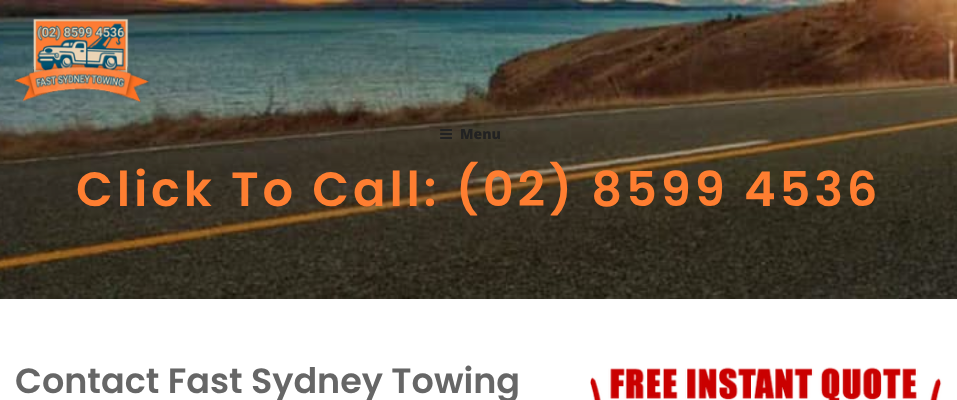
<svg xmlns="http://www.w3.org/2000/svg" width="957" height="400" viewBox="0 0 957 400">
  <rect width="100%" height="100%" fill="#ffffff"/>
  <rect x="0" y="299" width="957" height="1" fill="#fafafa"/>
  <image x="0" y="0" width="957" height="299" href="img3.png"/>
  <image x="14" y="18" width="135" height="85" href="img1.png"/>
  <image x="440" y="129" width="12" height="10" href="img2.png"/>
  <text x="460" y="139" font-family="Open Sans" font-size="14" font-weight="800" fill="#222222">Menu</text>
  <text x="76" y="206" font-family="Poppins" font-size="48" font-weight="600" letter-spacing="3.85" fill="#ff7e31">Click To Call: (02) 8599 4536</text>
  <text x="15" y="393" font-family="Poppins" font-size="35" font-weight="600" fill="#666666">Contact Fast Sydney Towing</text>
  <image x="590" y="367" width="352" height="33" href="img4.png"/>
</svg>
